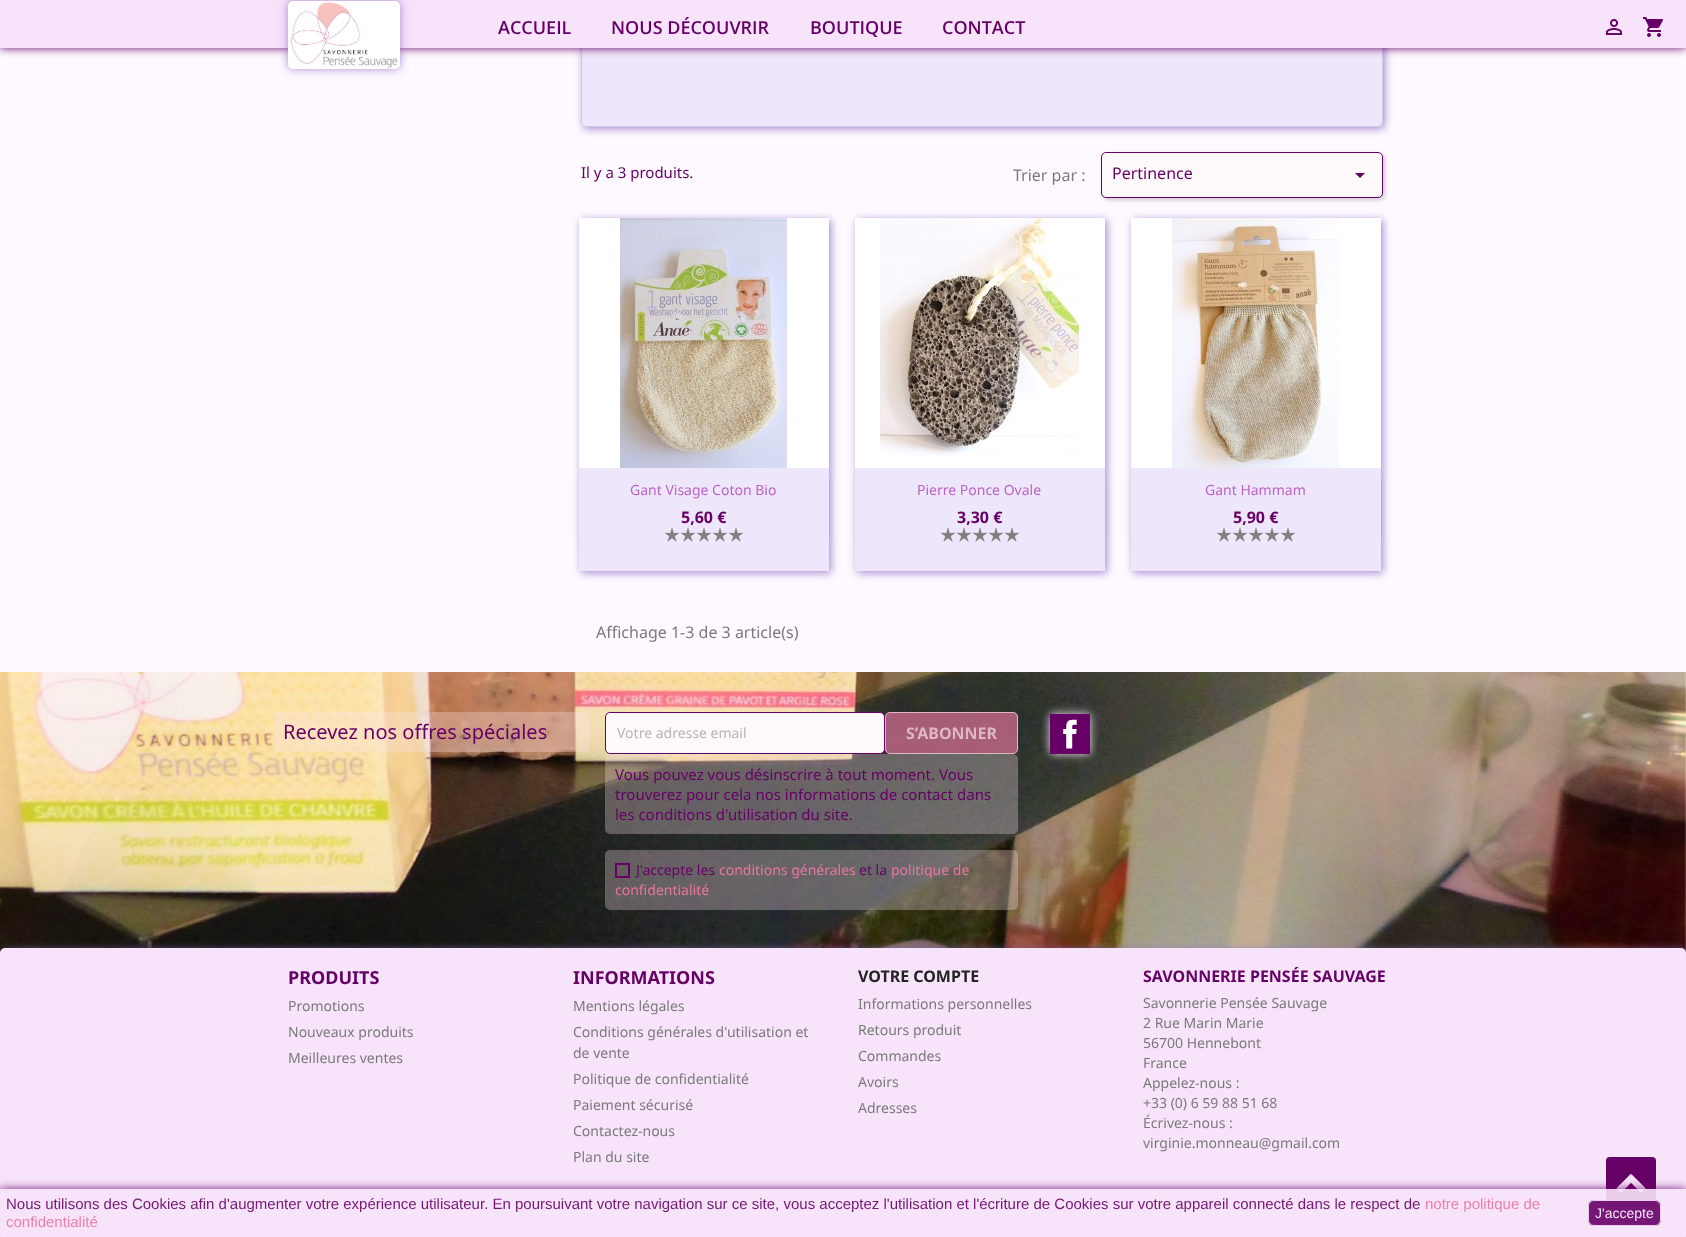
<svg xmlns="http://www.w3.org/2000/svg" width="1686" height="1237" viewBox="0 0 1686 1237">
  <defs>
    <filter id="blur1" x="-50%" y="-200%" width="200%" height="500%"><feGaussianBlur stdDeviation="4"/></filter>
    <filter id="blur2" x="-50%" y="-200%" width="200%" height="500%"><feGaussianBlur stdDeviation="5"/></filter>
    <filter id="blur3" x="-50%" y="-200%" width="200%" height="500%"><feGaussianBlur stdDeviation="2"/></filter>
    <clipPath id="clip1"><rect x="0" y="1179" width="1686" height="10"/></clipPath>
  </defs>
  <rect width="100%" height="100%" fill="#ffffff"/>
  <rect x="0" y="48" width="1686" height="624" fill="#fef9ff"/>
  <rect x="583" y="-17" width="802" height="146" rx="5" fill="#916ec8" fill-opacity="0.8" filter="url(#blur1)"/>
  <rect x="581" y="-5" width="802" height="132" rx="5" fill="#eee6fa"/>
  <rect x="581.5" y="-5.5" width="801" height="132" rx="4.5" fill="none" stroke="#000000" stroke-opacity="0.12"/>
  <rect x="0" y="0" width="1686" height="48" fill="#660066" filter="url(#blur2)"/>
  <rect x="0" y="0" width="1686" height="48" fill="#f7e3fa"/>
  <rect x="288" y="1" width="112" height="68" rx="5" fill="#916ec8" fill-opacity="0.8" filter="url(#blur2)"/>
  <image x="288" y="1" width="112" height="68" href="img1.png"/>
  <text x="498" y="34" font-family="Open Sans" font-size="18" font-weight="600" fill="#660066">ACCUEIL</text>
  <text x="611" y="34" font-family="Open Sans" font-size="18" font-weight="600" fill="#660066">NOUS DÉCOUVRIR</text>
  <text x="810" y="34" font-family="Open Sans" font-size="18" font-weight="600" fill="#660066">BOUTIQUE</text>
  <text x="942" y="34" font-family="Open Sans" font-size="18" font-weight="600" fill="#660066">CONTACT</text>
  <image x="1606" y="19" width="16" height="16" href="img2.png"/>
  <image x="1643" y="17" width="20" height="20" href="img3.png"/>
  <image x="0" y="672" width="1686" height="565" href="img9.png"/>
  <rect x="2" y="950" width="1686" height="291" rx="5" fill="#916ec8" fill-opacity="0.8" filter="url(#blur1)"/>
  <rect x="0" y="948" width="1686" height="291" rx="5" fill="#f7e3fa"/>
  <rect x="1606" y="1157" width="50" height="50" rx="4" fill="#660066"/>
  <image x="1616" y="1174" width="30" height="19" href="img4.png"/>
  <text x="581" y="178" font-family="Noto Sans" font-size="15" fill="#660066">Il y a 3 produits.</text>
  <text x="1013" y="181" font-family="Noto Sans" font-size="16" fill="#7a7a7a">Trier par :</text>
  <rect x="1103" y="154" width="282" height="46" rx="5" fill="#000000" fill-opacity="0.2" filter="url(#blur3)"/>
  <rect x="1101.5" y="152.5" width="281" height="45" rx="4.5" fill="#fff9fb" stroke="#660066"/>
  <text x="1112" y="179" font-family="Noto Sans" font-size="16" fill="#660066">Pertinence</text>
  <path d="M1355 173H1365L1360 178Z" fill="#660066"/>
  <rect x="581" y="220" width="250" height="353" fill="#916ec8" fill-opacity="0.8" filter="url(#blur1)"/>
  <rect x="579" y="218" width="250" height="250" fill="#ffffff"/>
  <image x="619" y="218" width="168" height="250" href="img5.png"/>
  <rect x="584" y="479" width="240" height="62" fill="#000000" fill-opacity="0.2" filter="url(#blur2)"/>
  <rect x="579" y="468" width="250" height="103" fill="#eee6fa"/>
  <text x="630" y="495" font-family="Noto Sans" font-size="14" fill="#bb64c4">Gant Visage Coton Bio</text>
  <text x="681" y="523" font-family="Noto Sans" font-size="16" font-weight="bold" fill="#660066">5,60 €</text>
  <image x="664" y="527" width="16" height="15" href="img6.png"/>
  <image x="680" y="527" width="16" height="15" href="img6.png"/>
  <image x="696" y="527" width="16" height="15" href="img6.png"/>
  <image x="712" y="527" width="16" height="15" href="img6.png"/>
  <image x="728" y="527" width="16" height="15" href="img6.png"/>
  <rect x="857" y="220" width="250" height="353" fill="#916ec8" fill-opacity="0.8" filter="url(#blur1)"/>
  <rect x="855" y="218" width="250" height="250" fill="#ffffff"/>
  <image x="879" y="218" width="201" height="240" href="img7.png"/>
  <rect x="860" y="479" width="240" height="62" fill="#000000" fill-opacity="0.2" filter="url(#blur2)"/>
  <rect x="855" y="468" width="250" height="103" fill="#eee6fa"/>
  <text x="917" y="495" font-family="Noto Sans" font-size="14" fill="#bb64c4">Pierre Ponce Ovale</text>
  <text x="957" y="523" font-family="Noto Sans" font-size="16" font-weight="bold" fill="#660066">3,30 €</text>
  <image x="940" y="527" width="16" height="15" href="img6.png"/>
  <image x="956" y="527" width="16" height="15" href="img6.png"/>
  <image x="972" y="527" width="16" height="15" href="img6.png"/>
  <image x="988" y="527" width="16" height="15" href="img6.png"/>
  <image x="1004" y="527" width="16" height="15" href="img6.png"/>
  <rect x="1133" y="220" width="250" height="353" fill="#916ec8" fill-opacity="0.8" filter="url(#blur1)"/>
  <rect x="1131" y="218" width="250" height="250" fill="#ffffff"/>
  <image x="1172" y="218" width="167" height="250" href="img8.png"/>
  <rect x="1136" y="479" width="240" height="62" fill="#000000" fill-opacity="0.2" filter="url(#blur2)"/>
  <rect x="1131" y="468" width="250" height="103" fill="#eee6fa"/>
  <text x="1205" y="495" font-family="Noto Sans" font-size="14" fill="#bb64c4">Gant Hammam</text>
  <text x="1233" y="523" font-family="Noto Sans" font-size="16" font-weight="bold" fill="#660066">5,90 €</text>
  <image x="1216" y="527" width="16" height="15" href="img6.png"/>
  <image x="1232" y="527" width="16" height="15" href="img6.png"/>
  <image x="1248" y="527" width="16" height="15" href="img6.png"/>
  <image x="1264" y="527" width="16" height="15" href="img6.png"/>
  <image x="1280" y="527" width="16" height="15" href="img6.png"/>
  <text x="596" y="638" font-family="Noto Sans" font-size="16" fill="#7a7a7a">Affichage 1-3 de 3 article(s)</text>
  <rect x="273" y="712" width="317" height="40" rx="5" fill="#fde6ee" fill-opacity="0.3"/>
  <text x="283" y="739" font-family="Noto Sans" font-size="20" fill="#660066">Recevez nos offres spéciales</text>
  <rect x="605.5" y="712.5" width="279" height="41" rx="4.5" fill="#fff9fb" stroke="#660066"/>
  <text x="617" y="738" font-family="Noto Sans" font-size="14" fill="#b7b4b5">Votre adresse email</text>
  <rect x="885" y="712" width="133" height="42" rx="5" fill="#ea769f" fill-opacity="0.65"/>
  <rect x="885.5" y="712.5" width="132" height="41" rx="4.5" fill="none" stroke="#fde6ee" stroke-opacity="0.65"/>
  <text x="906" y="739" font-family="Noto Sans" font-size="16" font-weight="bold" fill="#dfb6c4">S’ABONNER</text>
  <rect x="605" y="754" width="413" height="80" rx="5" fill="#fde6ee" fill-opacity="0.3"/>
  <text x="615" y="780" font-family="Noto Sans" font-size="15" fill="#660066">Vous pouvez vous désinscrire à tout moment. Vous</text>
  <text x="615" y="800" font-family="Noto Sans" font-size="15" fill="#660066">trouverez pour cela nos informations de contact dans</text>
  <text x="615" y="820" font-family="Noto Sans" font-size="15" fill="#660066">les conditions d'utilisation du site.</text>
  <rect x="605" y="850" width="413" height="60" rx="5" fill="#fde6ee" fill-opacity="0.3"/>
  <rect x="616" y="864" width="13" height="13" fill="none" stroke="#660066" stroke-width="2"/>
  <text x="636" y="875" font-family="Noto Sans" font-size="14" fill="#660066">J'accepte les</text>
  <text x="719" y="875" font-family="Noto Sans" font-size="14" fill="#ea769f">conditions générales</text>
  <text x="859" y="875" font-family="Noto Sans" font-size="14" fill="#660066">et la</text>
  <text x="891" y="875" font-family="Noto Sans" font-size="14" fill="#ea769f">politique de</text>
  <text x="615" y="895" font-family="Noto Sans" font-size="14" fill="#ea769f">confidentialité</text>
  <rect x="1050" y="714" width="40" height="40" fill="#f7e3fa" filter="url(#blur2)"/>
  <rect x="1050" y="714" width="40" height="40" fill="#660066"/>
  <image x="1063" y="719" width="14" height="30" href="img10.png"/>
  <text x="288" y="984" font-family="Noto Sans" font-size="18" font-weight="bold" fill="#660066">PRODUITS</text>
  <text x="288" y="1011" font-family="Noto Sans" font-size="14" fill="#7a7a7a">Promotions</text>
  <text x="288" y="1037" font-family="Noto Sans" font-size="14" fill="#7a7a7a">Nouveaux produits</text>
  <text x="288" y="1063" font-family="Noto Sans" font-size="14" fill="#7a7a7a">Meilleures ventes</text>
  <text x="573" y="984" font-family="Noto Sans" font-size="18" font-weight="bold" fill="#660066">INFORMATIONS</text>
  <text x="573" y="1011" font-family="Noto Sans" font-size="14" fill="#7a7a7a">Mentions légales</text>
  <text x="573" y="1037" font-family="Noto Sans" font-size="14" fill="#7a7a7a">Conditions générales d'utilisation et</text>
  <text x="573" y="1058" font-family="Noto Sans" font-size="14" fill="#7a7a7a">de vente</text>
  <text x="573" y="1084" font-family="Noto Sans" font-size="14" fill="#7a7a7a">Politique de confidentialité</text>
  <text x="573" y="1110" font-family="Noto Sans" font-size="14" fill="#7a7a7a">Paiement sécurisé</text>
  <text x="573" y="1136" font-family="Noto Sans" font-size="14" fill="#7a7a7a">Contactez-nous</text>
  <text x="573" y="1162" font-family="Noto Sans" font-size="14" fill="#7a7a7a">Plan du site</text>
  <text x="858" y="982" font-family="Noto Sans" font-size="16" font-weight="bold" fill="#232323">VOTRE COMPTE</text>
  <text x="858" y="1009" font-family="Noto Sans" font-size="14" fill="#7a7a7a">Informations personnelles</text>
  <text x="858" y="1035" font-family="Noto Sans" font-size="14" fill="#7a7a7a">Retours produit</text>
  <text x="858" y="1061" font-family="Noto Sans" font-size="14" fill="#7a7a7a">Commandes</text>
  <text x="858" y="1087" font-family="Noto Sans" font-size="14" fill="#7a7a7a">Avoirs</text>
  <text x="858" y="1113" font-family="Noto Sans" font-size="14" fill="#7a7a7a">Adresses</text>
  <text x="1143" y="982" font-family="Noto Sans" font-size="16" font-weight="bold" fill="#660066">SAVONNERIE PENSÉE SAUVAGE</text>
  <text x="1143" y="1008" font-family="Noto Sans" font-size="14" fill="#7a7a7a">Savonnerie Pensée Sauvage</text>
  <text x="1143" y="1028" font-family="Noto Sans" font-size="14" fill="#7a7a7a">2 Rue Marin Marie</text>
  <text x="1143" y="1048" font-family="Noto Sans" font-size="14" fill="#7a7a7a">56700 Hennebont</text>
  <text x="1143" y="1068" font-family="Noto Sans" font-size="14" fill="#7a7a7a">France</text>
  <text x="1143" y="1088" font-family="Noto Sans" font-size="14" fill="#7a7a7a">Appelez-nous :</text>
  <text x="1143" y="1108" font-family="Noto Sans" font-size="14" fill="#7a7a7a">+33 (0) 6 59 88 51 68</text>
  <text x="1143" y="1128" font-family="Noto Sans" font-size="14" fill="#7a7a7a">Écrivez-nous :</text>
  <text x="1143" y="1148" font-family="Noto Sans" font-size="14" fill="#7a7a7a">virginie.monneau@gmail.com</text>
  <g clip-path="url(#clip1)">
    <rect x="0" y="1189" width="1686" height="48" fill="#660066" fill-opacity="0.9" filter="url(#blur2)"/>
  </g>
  <rect x="0" y="1189" width="1686" height="48" fill="#f7e3fa" fill-opacity="0.9"/>
  <text x="6" y="1209" font-family="Liberation Sans" font-size="15" fill="#741775">Nous utilisons des Cookies afin d'augmenter votre expérience utilisateur. En poursuivant votre navigation sur ce site, vous acceptez l'utilisation et l'écriture de Cookies sur votre appareil connecté dans le respect de</text>
  <text x="1425" y="1209" font-family="Liberation Sans" font-size="15" fill="#eb81a8">notre politique de</text>
  <text x="6" y="1227" font-family="Liberation Sans" font-size="15" fill="#eb81a8">confidentialité</text>
  <rect x="1588" y="1200" width="73" height="26" rx="6" fill="#660066" fill-opacity="0.9"/>
  <rect x="1588.5" y="1200.5" width="72" height="25" rx="5.5" fill="none" stroke="#f7e3fa" stroke-opacity="0.9"/>
  <text x="1595" y="1218" font-family="Liberation Sans" font-size="14" fill="#f7e3fa">J'accepte</text>
</svg>
